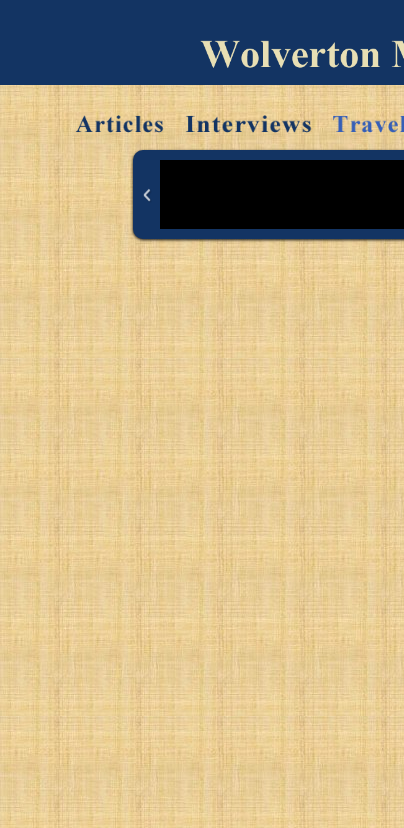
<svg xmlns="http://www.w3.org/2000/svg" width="404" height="828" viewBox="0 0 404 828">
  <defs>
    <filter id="blur1" x="-50%" y="-200%" width="200%" height="500%"><feGaussianBlur stdDeviation="1.5"/></filter>
  </defs>
  <rect width="100%" height="100%" fill="#ffffff"/>
  <image x="0" y="85" width="404" height="743" href="img1.png"/>
  <rect x="0" y="0" width="404" height="85" fill="#133463"/>
  <image x="200" y="40" width="204" height="28" href="img2.png"/>
  <image x="75" y="115" width="89" height="18" href="img3.png"/>
  <image x="185" y="115" width="127" height="18" href="img4.png"/>
  <image x="333" y="115" width="71" height="18" href="img5.png"/>
  <rect x="133" y="151" width="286" height="89" rx="10" fill="#000000" fill-opacity="0.9" filter="url(#blur1)"/>
  <rect x="133" y="150" width="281" height="89" rx="10" fill="#133463"/>
  <image x="143" y="188" width="9" height="15" href="img6.png"/>
  <rect x="160" y="160" width="244" height="69" fill="#000000"/>
</svg>
